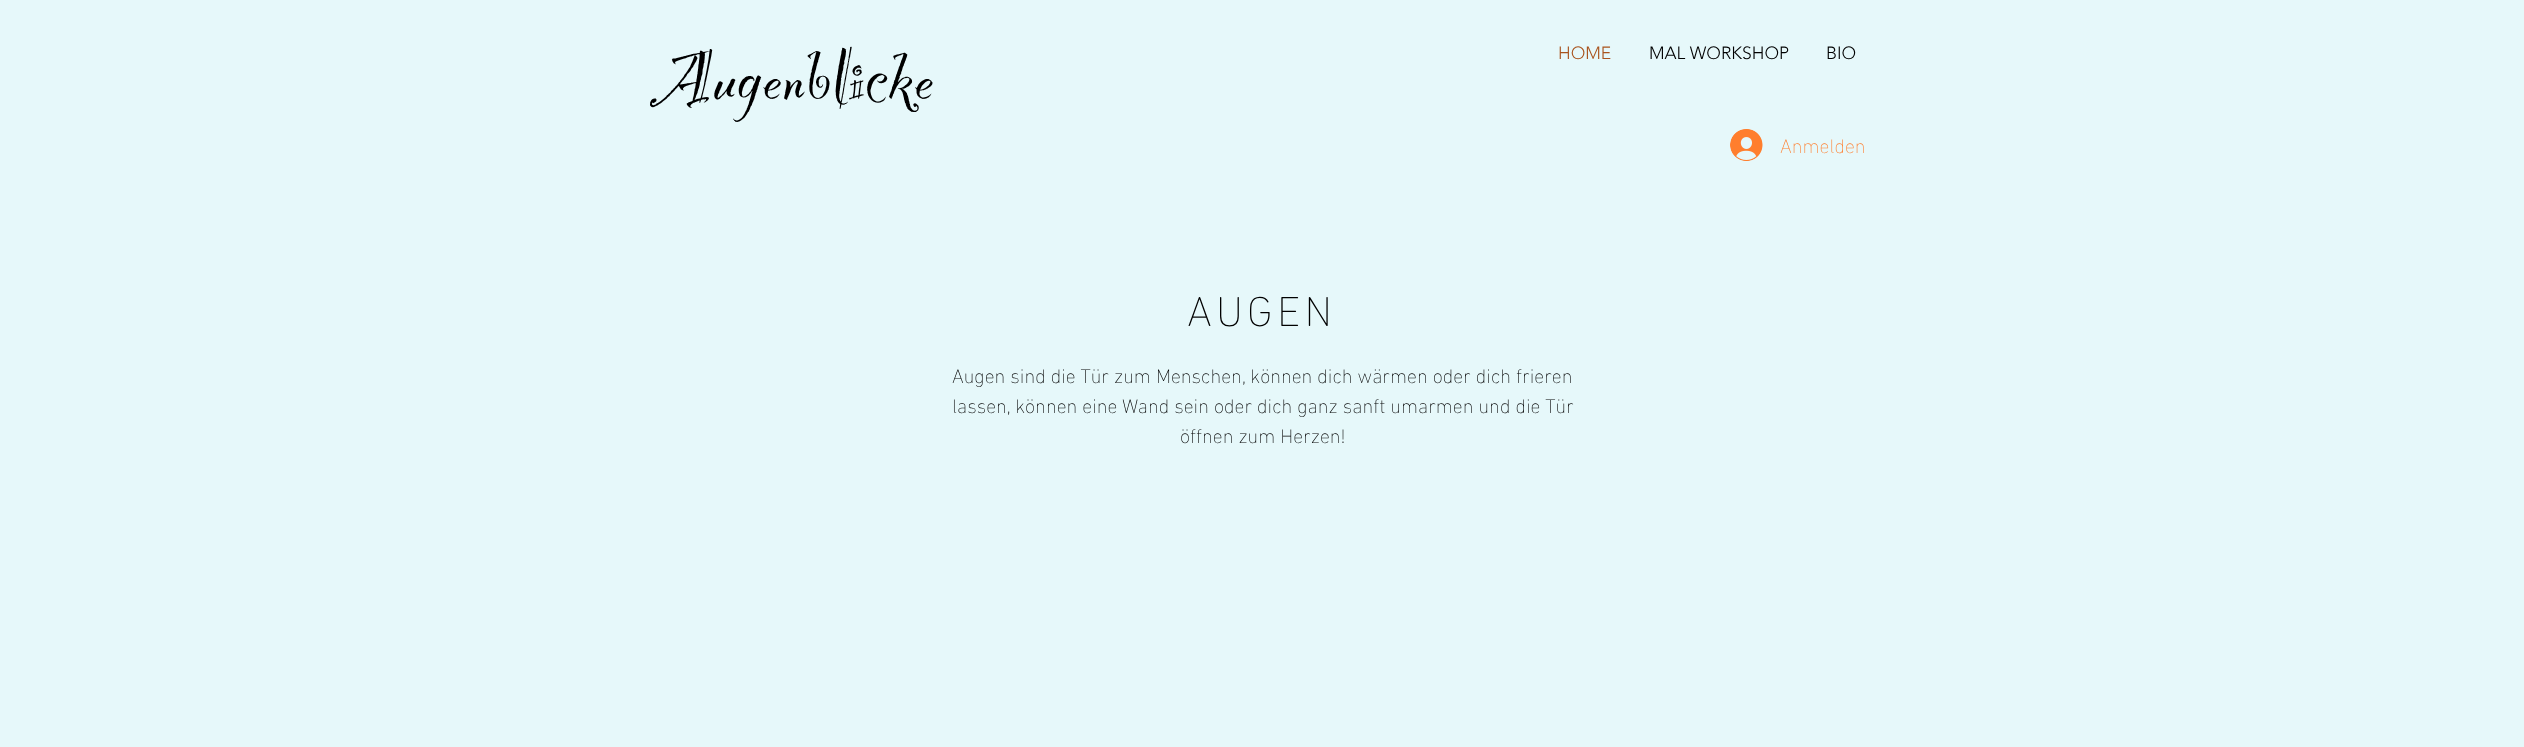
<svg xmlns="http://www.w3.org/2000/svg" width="2524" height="747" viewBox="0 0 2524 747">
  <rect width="100%" height="100%" fill="#e6f8fa"/>
  <text x="650" y="98" font-family="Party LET" font-size="87.5" font-weight="100" fill="#000000">Augenblicke</text>
  <text x="1558" y="59" font-family="'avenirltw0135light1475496'" font-size="17.5" font-weight="300" fill="#a9541e">HOME</text>
  <text x="1649" y="59" font-family="'avenirltw0135light1475496'" font-size="17.5" font-weight="300" fill="#000000">MAL WORKSHOP</text>
  <text x="1826" y="59" font-family="'avenirltw0135light1475496'" font-size="17.5" font-weight="300" fill="#000000">BIO</text>
  <image x="1730" y="129" width="33" height="32" href="img1.png"/>
  <text x="1780" y="153" font-family="'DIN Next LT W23'" font-size="20" font-weight="200" fill="#ff7e2d">Anmelden</text>
  <text x="1187" y="326" font-family="'DIN Next LT W23'" font-size="42.5" font-weight="200" letter-spacing="4.25" fill="#000000">AUGEN</text>
  <text x="952" y="383" font-family="'DIN Next LT W23'" font-size="20" font-weight="200" fill="#000000">Augen sind die Tür zum Menschen, können dich wärmen oder dich frieren</text>
  <text x="952" y="413" font-family="'DIN Next LT W23'" font-size="20" font-weight="200" fill="#000000">lassen, können eine Wand sein oder dich ganz sanft umarmen und die Tür</text>
  <text x="1180" y="443" font-family="'DIN Next LT W23'" font-size="20" font-weight="200" fill="#000000">öffnen zum Herzen!</text>
</svg>
